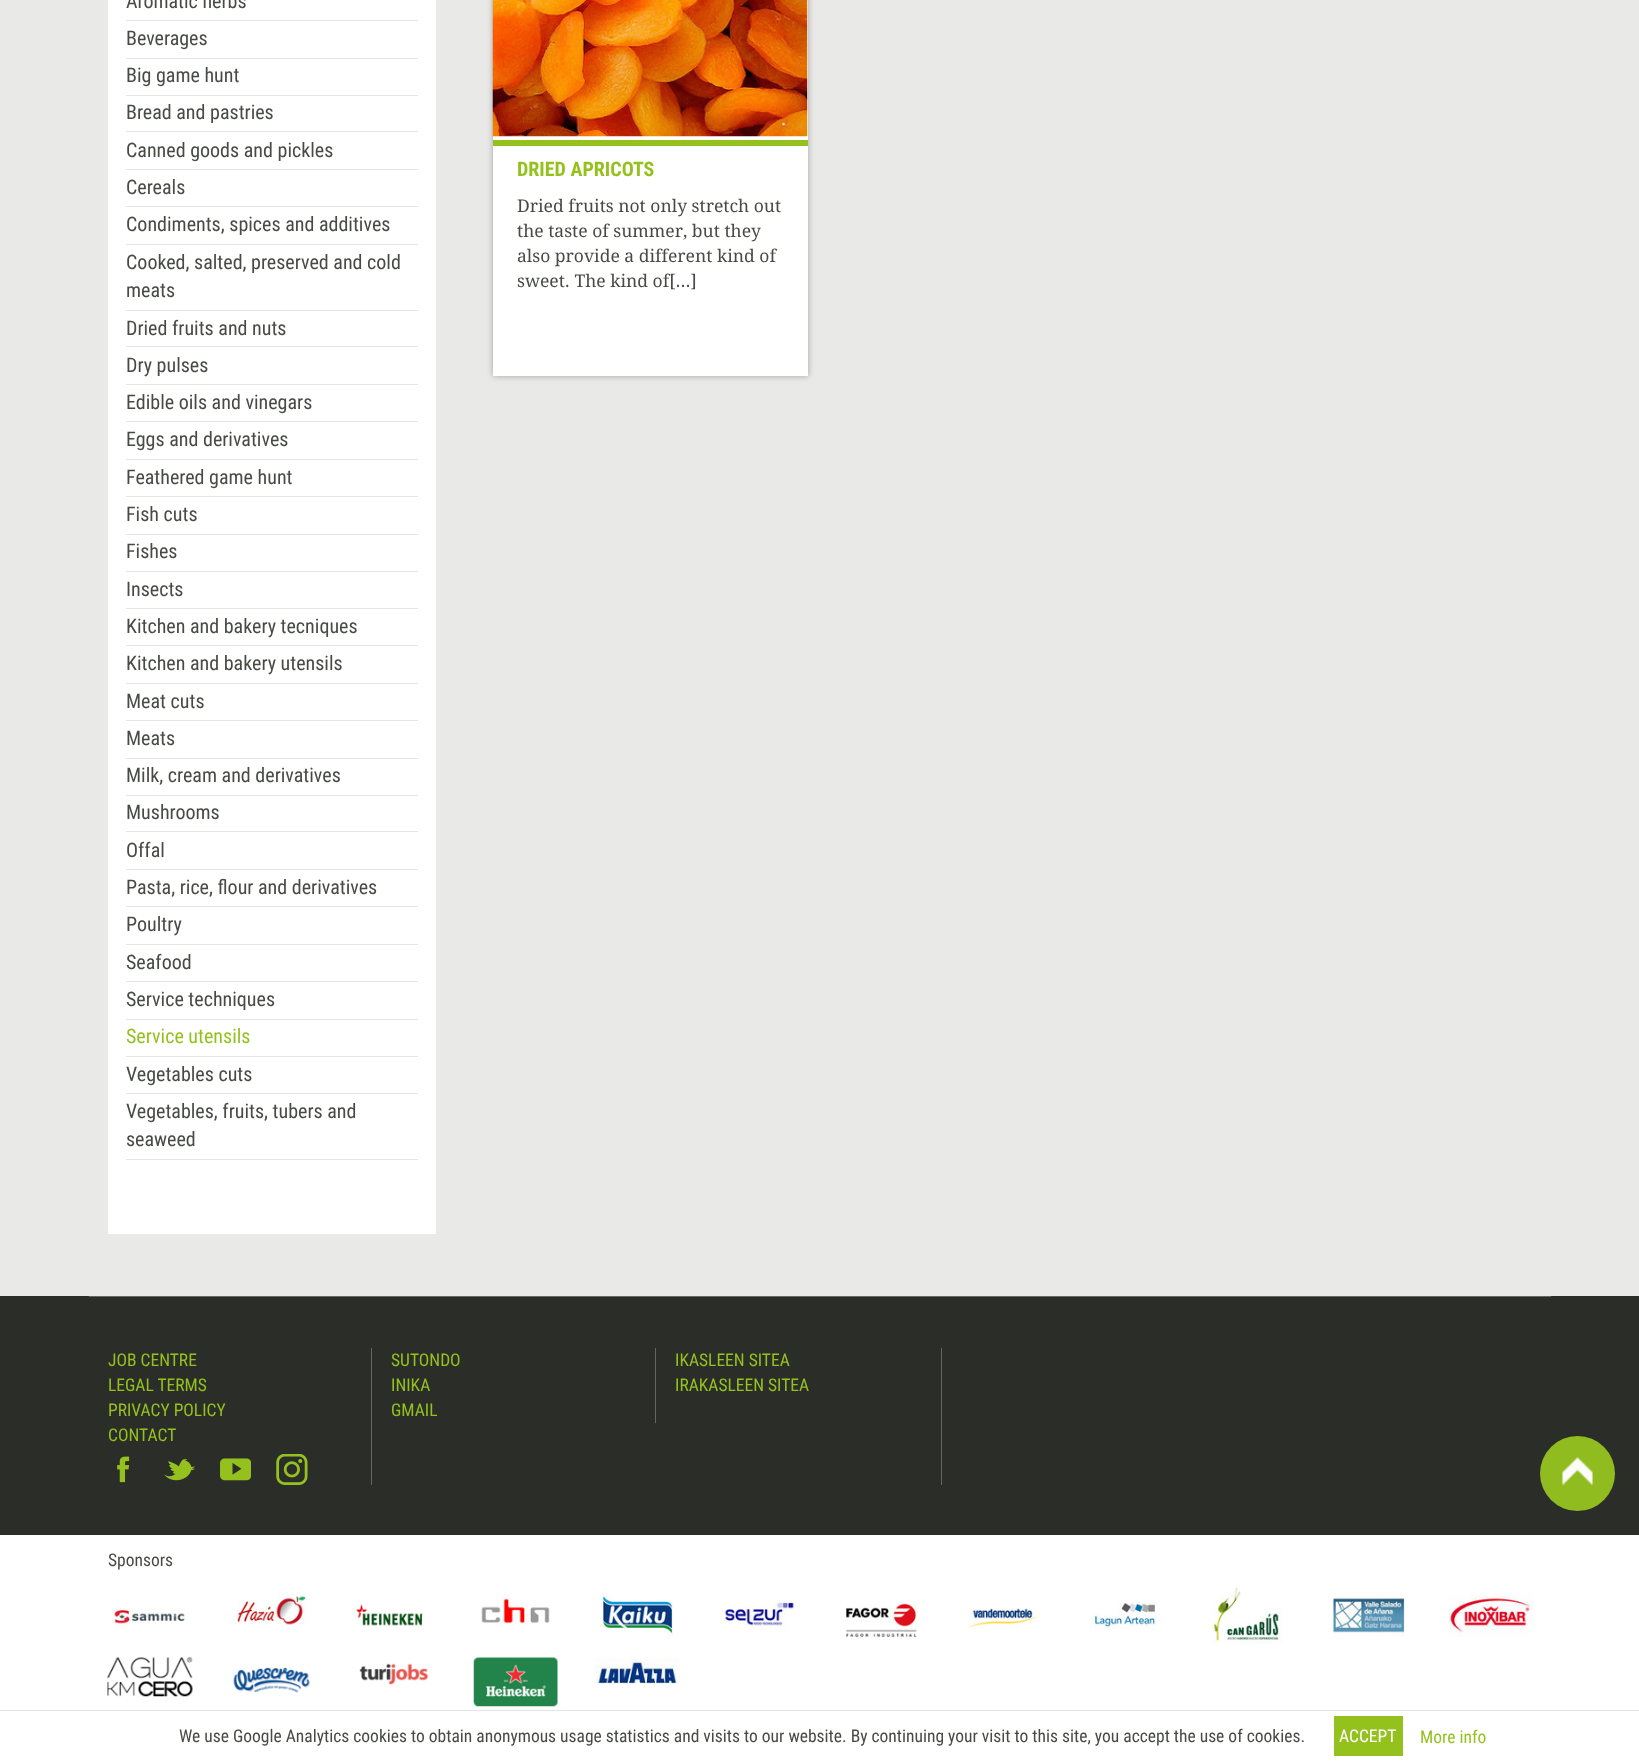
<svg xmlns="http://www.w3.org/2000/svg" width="1639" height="1761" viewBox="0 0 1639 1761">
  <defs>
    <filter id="blur1" x="-50%" y="-200%" width="200%" height="500%"><feGaussianBlur stdDeviation="3"/></filter>
  </defs>
  <rect width="100%" height="100%" fill="#ffffff"/>
  <rect x="0" y="0" width="1639" height="1296" fill="#e9eae8"/>
  <rect x="108" y="0" width="328" height="1234" fill="#ffffff"/>
  <rect x="126" y="20" width="292" height="1" fill="#e5e5e5"/>
  <text x="126" y="8" font-family="Roboto Condensed" font-size="20" fill="#484b45">Aromatic herbs</text>
  <rect x="126" y="58" width="292" height="1" fill="#e5e5e5"/>
  <text x="126" y="45" font-family="Roboto Condensed" font-size="20" fill="#484b45">Beverages</text>
  <rect x="126" y="95" width="292" height="1" fill="#e5e5e5"/>
  <text x="126" y="82" font-family="Roboto Condensed" font-size="20" fill="#484b45">Big game hunt</text>
  <rect x="126" y="131" width="292" height="1" fill="#e5e5e5"/>
  <text x="126" y="119" font-family="Roboto Condensed" font-size="20" fill="#484b45">Bread and pastries</text>
  <rect x="126" y="169" width="292" height="1" fill="#e5e5e5"/>
  <text x="126" y="157" font-family="Roboto Condensed" font-size="20" fill="#484b45">Canned goods and pickles</text>
  <rect x="126" y="206" width="292" height="1" fill="#e5e5e5"/>
  <text x="126" y="194" font-family="Roboto Condensed" font-size="20" fill="#484b45">Cereals</text>
  <rect x="126" y="244" width="292" height="1" fill="#e5e5e5"/>
  <text x="126" y="231" font-family="Roboto Condensed" font-size="20" fill="#484b45">Condiments, spices and additives</text>
  <rect x="126" y="310" width="292" height="1" fill="#e5e5e5"/>
  <text x="126" y="269" font-family="Roboto Condensed" font-size="20" fill="#484b45">Cooked, salted, preserved and cold</text>
  <text x="126" y="297" font-family="Roboto Condensed" font-size="20" fill="#484b45">meats</text>
  <rect x="126" y="346" width="292" height="1" fill="#e5e5e5"/>
  <text x="126" y="335" font-family="Roboto Condensed" font-size="20" fill="#484b45">Dried fruits and nuts</text>
  <rect x="126" y="384" width="292" height="1" fill="#e5e5e5"/>
  <text x="126" y="372" font-family="Roboto Condensed" font-size="20" fill="#484b45">Dry pulses</text>
  <rect x="126" y="421" width="292" height="1" fill="#e5e5e5"/>
  <text x="126" y="409" font-family="Roboto Condensed" font-size="20" fill="#484b45">Edible oils and vinegars</text>
  <rect x="126" y="459" width="292" height="1" fill="#e5e5e5"/>
  <text x="126" y="446" font-family="Roboto Condensed" font-size="20" fill="#484b45">Eggs and derivatives</text>
  <rect x="126" y="496" width="292" height="1" fill="#e5e5e5"/>
  <text x="126" y="484" font-family="Roboto Condensed" font-size="20" fill="#484b45">Feathered game hunt</text>
  <rect x="126" y="534" width="292" height="1" fill="#e5e5e5"/>
  <text x="126" y="521" font-family="Roboto Condensed" font-size="20" fill="#484b45">Fish cuts</text>
  <rect x="126" y="571" width="292" height="1" fill="#e5e5e5"/>
  <text x="126" y="558" font-family="Roboto Condensed" font-size="20" fill="#484b45">Fishes</text>
  <rect x="126" y="608" width="292" height="1" fill="#e5e5e5"/>
  <text x="126" y="596" font-family="Roboto Condensed" font-size="20" fill="#484b45">Insects</text>
  <rect x="126" y="645" width="292" height="1" fill="#e5e5e5"/>
  <text x="126" y="633" font-family="Roboto Condensed" font-size="20" fill="#484b45">Kitchen and bakery tecniques</text>
  <rect x="126" y="683" width="292" height="1" fill="#e5e5e5"/>
  <text x="126" y="670" font-family="Roboto Condensed" font-size="20" fill="#484b45">Kitchen and bakery utensils</text>
  <rect x="126" y="720" width="292" height="1" fill="#e5e5e5"/>
  <text x="126" y="708" font-family="Roboto Condensed" font-size="20" fill="#484b45">Meat cuts</text>
  <rect x="126" y="758" width="292" height="1" fill="#e5e5e5"/>
  <text x="126" y="745" font-family="Roboto Condensed" font-size="20" fill="#484b45">Meats</text>
  <rect x="126" y="795" width="292" height="1" fill="#e5e5e5"/>
  <text x="126" y="782" font-family="Roboto Condensed" font-size="20" fill="#484b45">Milk, cream and derivatives</text>
  <rect x="126" y="831" width="292" height="1" fill="#e5e5e5"/>
  <text x="126" y="819" font-family="Roboto Condensed" font-size="20" fill="#484b45">Mushrooms</text>
  <rect x="126" y="869" width="292" height="1" fill="#e5e5e5"/>
  <text x="126" y="857" font-family="Roboto Condensed" font-size="20" fill="#484b45">Offal</text>
  <rect x="126" y="906" width="292" height="1" fill="#e5e5e5"/>
  <text x="126" y="894" font-family="Roboto Condensed" font-size="20" fill="#484b45">Pasta, rice, flour and derivatives</text>
  <rect x="126" y="944" width="292" height="1" fill="#e5e5e5"/>
  <text x="126" y="931" font-family="Roboto Condensed" font-size="20" fill="#484b45">Poultry</text>
  <rect x="126" y="981" width="292" height="1" fill="#e5e5e5"/>
  <text x="126" y="969" font-family="Roboto Condensed" font-size="20" fill="#484b45">Seafood</text>
  <rect x="126" y="1019" width="292" height="1" fill="#e5e5e5"/>
  <text x="126" y="1006" font-family="Roboto Condensed" font-size="20" fill="#484b45">Service techniques</text>
  <rect x="126" y="1056" width="292" height="1" fill="#e5e5e5"/>
  <text x="126" y="1043" font-family="Roboto Condensed" font-size="20" fill="#95c11f">Service utensils</text>
  <rect x="126" y="1093" width="292" height="1" fill="#e5e5e5"/>
  <text x="126" y="1081" font-family="Roboto Condensed" font-size="20" fill="#484b45">Vegetables cuts</text>
  <rect x="126" y="1159" width="292" height="1" fill="#e5e5e5"/>
  <text x="126" y="1118" font-family="Roboto Condensed" font-size="20" fill="#484b45">Vegetables, fruits, tubers and</text>
  <text x="126" y="1146" font-family="Roboto Condensed" font-size="20" fill="#484b45">seaweed</text>
  <rect x="493" y="-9" width="315" height="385" fill="#000000" fill-opacity="0.3" filter="url(#blur1)"/>
  <rect x="493" y="0" width="315" height="376" fill="#ffffff"/>
  <rect x="493" y="140" width="315" height="6" fill="#95c11f"/>
  <image x="492" y="0" width="316" height="137" href="img1.png"/>
  <text x="517" y="176" font-family="Roboto Condensed" font-size="20" font-weight="bold" fill="#95c11f">DRIED APRICOTS</text>
  <text x="517" y="212" font-family="Droid Serif" font-size="17.5" fill="#484b45">Dried fruits not only stretch out</text>
  <text x="517" y="237" font-family="Droid Serif" font-size="17.5" fill="#484b45">the taste of summer, but they</text>
  <text x="517" y="262" font-family="Droid Serif" font-size="17.5" fill="#484b45">also provide a different kind of</text>
  <text x="517" y="287" font-family="Droid Serif" font-size="17.5" fill="#484b45">sweet. The kind of[...]</text>
  <rect x="0" y="1296" width="1639" height="239" fill="#2b2d28"/>
  <rect x="89" y="1296" width="1462" height="1" fill="#656565"/>
  <rect x="941" y="1348" width="1" height="137" fill="#656565"/>
  <rect x="371" y="1348" width="1" height="137" fill="#656565"/>
  <text x="108" y="1366" font-family="Roboto Condensed" font-size="17.5" fill="#95c11f">JOB CENTRE</text>
  <text x="108" y="1391" font-family="Roboto Condensed" font-size="17.5" fill="#95c11f">LEGAL TERMS</text>
  <text x="108" y="1416" font-family="Roboto Condensed" font-size="17.5" fill="#95c11f">PRIVACY POLICY</text>
  <text x="108" y="1441" font-family="Roboto Condensed" font-size="17.5" fill="#95c11f">CONTACT</text>
  <image x="117" y="1456" width="13" height="27" href="img2.png"/>
  <image x="164" y="1458" width="31" height="23" href="img3.png"/>
  <image x="220" y="1458" width="31" height="23" href="img4.png"/>
  <image x="276" y="1454" width="32" height="31" href="img5.png"/>
  <rect x="655" y="1348" width="1" height="75" fill="#656565"/>
  <text x="391" y="1366" font-family="Roboto Condensed" font-size="17.5" fill="#95c11f">SUTONDO</text>
  <text x="391" y="1391" font-family="Roboto Condensed" font-size="17.5" fill="#95c11f">INIKA</text>
  <text x="391" y="1416" font-family="Roboto Condensed" font-size="17.5" fill="#95c11f">GMAIL</text>
  <text x="675" y="1366" font-family="Roboto Condensed" font-size="17.5" fill="#95c11f">IKASLEEN SITEA</text>
  <text x="675" y="1391" font-family="Roboto Condensed" font-size="17.5" fill="#95c11f">IRAKASLEEN SITEA</text>
  <text x="108" y="1566" font-family="Roboto Condensed" font-size="17.5" fill="#484b45">Sponsors</text>
  <image x="114" y="1608" width="71" height="21" href="img6.png"/>
  <image x="237" y="1594" width="70" height="36" href="img7.png"/>
  <image x="356" y="1604" width="67" height="22" href="img8.png"/>
  <image x="481" y="1594" width="69" height="30" href="img9.png"/>
  <image x="602" y="1594" width="72" height="43" href="img10.png"/>
  <image x="724" y="1601" width="71" height="29" href="img11.png"/>
  <image x="846" y="1601" width="72" height="37" href="img12.png"/>
  <image x="968" y="1608" width="70" height="22" href="img13.png"/>
  <image x="1090" y="1601" width="67" height="29" href="img14.png"/>
  <image x="1212" y="1587" width="71" height="57" href="img15.png"/>
  <image x="1332" y="1594" width="73" height="43" href="img16.png"/>
  <image x="1448" y="1594" width="85" height="43" href="img17.png"/>
  <image x="107" y="1657" width="86" height="40" href="img18.png"/>
  <image x="233" y="1667" width="77" height="26" href="img19.png"/>
  <image x="359" y="1663" width="70" height="22" href="img20.png"/>
  <image x="473" y="1657" width="85" height="50" href="img21.png"/>
  <image x="595" y="1658" width="85" height="26" href="img22.png"/>
  <circle cx="1577.5" cy="1473.5" r="37.5" fill="#91bc1f"/>
  <image x="1562" y="1457" width="31" height="29" href="img23.png"/>
  <rect x="0" y="1710" width="1639" height="1" fill="#e4e4e4"/>
  <text x="179" y="1742" font-family="Roboto Condensed" font-size="17.5" fill="#484b45">We use Google Analytics cookies to obtain anonymous usage statistics and visits to our website. By continuing your visit to this site, you accept the use of cookies.</text>
  <rect x="1334" y="1716" width="69" height="40" fill="#95c11f"/>
  <text x="1339" y="1742" font-family="Roboto Condensed" font-size="17.5" fill="#ffffff">ACCEPT</text>
  <text x="1420" y="1743" font-family="Roboto Condensed" font-size="17.5" fill="#95c11f">More info</text>
</svg>
